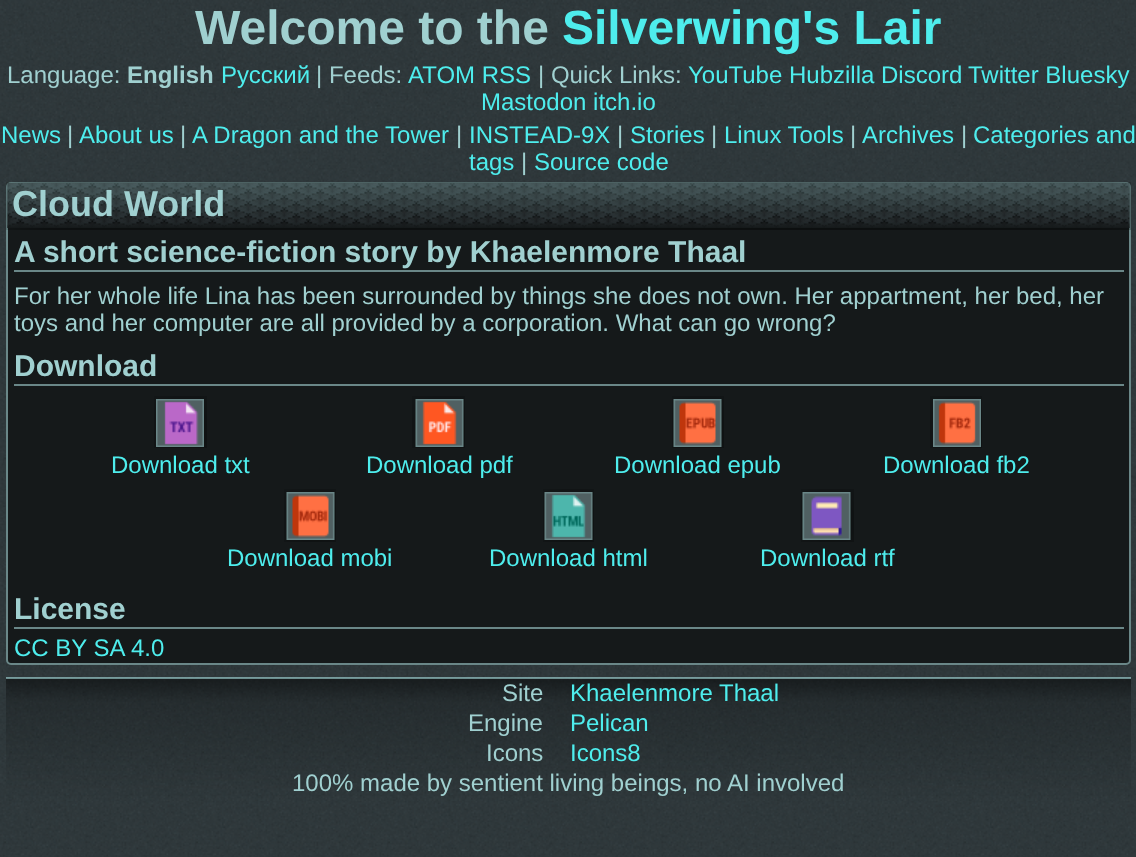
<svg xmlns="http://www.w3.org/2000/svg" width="1136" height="857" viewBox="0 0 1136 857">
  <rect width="100%" height="100%" fill="#ffffff"/>
  <image x="0" y="0" width="1136" height="857" href="img1.png"/>
  <text x="195" y="44" font-family="Liberation Sans" font-size="48" font-weight="bold" fill="#a0d0d0">Welcome to the</text>
  <text x="562" y="44" font-family="Liberation Sans" font-size="48" font-weight="bold" fill="#4eeded">Silverwing's Lair</text>
  <text x="7" y="83" font-family="Liberation Sans" font-size="24" fill="#a0d0d0">Language:</text>
  <text x="127" y="83" font-family="Liberation Sans" font-size="24" font-weight="bold" fill="#a0d0d0">English</text>
  <text x="221" y="83" font-family="Liberation Sans" font-size="24" fill="#4eeded">Русский</text>
  <text x="316" y="83" font-family="Liberation Sans" font-size="24" fill="#a0d0d0">| Feeds:</text>
  <text x="408" y="83" font-family="Liberation Sans" font-size="24" fill="#4eeded">ATOM RSS</text>
  <text x="538" y="83" font-family="Liberation Sans" font-size="24" fill="#a0d0d0">| Quick Links:</text>
  <text x="688" y="83" font-family="Liberation Sans" font-size="24" fill="#4eeded">YouTube Hubzilla Discord</text>
  <text x="968" y="83" font-family="Liberation Sans" font-size="24" fill="#4eeded">Twitter Bluesky</text>
  <text x="481" y="110" font-family="Liberation Sans" font-size="24" fill="#4eeded">Mastodon itch.io</text>
  <text x="1" y="143" font-family="Liberation Sans" font-size="24" fill="#4eeded">News</text>
  <text x="67" y="143" font-family="Liberation Sans" font-size="24" fill="#a0d0d0">|</text>
  <text x="79" y="143" font-family="Liberation Sans" font-size="24" fill="#4eeded">About us</text>
  <text x="180" y="143" font-family="Liberation Sans" font-size="24" fill="#a0d0d0">|</text>
  <text x="192" y="143" font-family="Liberation Sans" font-size="24" fill="#4eeded">A Dragon and the Tower</text>
  <text x="456" y="143" font-family="Liberation Sans" font-size="24" fill="#a0d0d0">|</text>
  <text x="469" y="143" font-family="Liberation Sans" font-size="24" fill="#4eeded">INSTEAD-9X</text>
  <text x="617" y="143" font-family="Liberation Sans" font-size="24" fill="#a0d0d0">|</text>
  <text x="630" y="143" font-family="Liberation Sans" font-size="24" fill="#4eeded">Stories</text>
  <text x="711" y="143" font-family="Liberation Sans" font-size="24" fill="#a0d0d0">|</text>
  <text x="724" y="143" font-family="Liberation Sans" font-size="24" fill="#4eeded">Linux Tools</text>
  <text x="850" y="143" font-family="Liberation Sans" font-size="24" fill="#a0d0d0">|</text>
  <text x="862" y="143" font-family="Liberation Sans" font-size="24" fill="#4eeded">Archives</text>
  <text x="961" y="143" font-family="Liberation Sans" font-size="24" fill="#a0d0d0">|</text>
  <text x="973" y="143" font-family="Liberation Sans" font-size="24" fill="#4eeded">Categories and</text>
  <text x="469" y="170" font-family="Liberation Sans" font-size="24" fill="#4eeded">tags</text>
  <text x="521" y="170" font-family="Liberation Sans" font-size="24" fill="#a0d0d0">|</text>
  <text x="534" y="170" font-family="Liberation Sans" font-size="24" fill="#4eeded">Source code</text>
  <rect x="7" y="183" width="1123" height="481" rx="4" fill="#15191a" stroke="#6a8788" stroke-width="2"/>
  <image x="6" y="182" width="1125" height="48" href="img2.png"/>
  <text x="12" y="216" font-family="Liberation Sans" font-size="36" font-weight="bold" fill="#a0d0d0">Cloud World</text>
  <rect x="14" y="270" width="1110" height="2" fill="#6a8788"/>
  <text x="14" y="262" font-family="Liberation Sans" font-size="30" font-weight="bold" fill="#a0d0d0">A short science-fiction story by Khaelenmore Thaal</text>
  <text x="14" y="304" font-family="Liberation Sans" font-size="24" fill="#a0d0d0">For her whole life Lina has been surrounded by things she does not own. Her appartment, her bed, her</text>
  <text x="14" y="331" font-family="Liberation Sans" font-size="24" fill="#a0d0d0">toys and her computer are all provided by a corporation. What can go wrong?</text>
  <rect x="14" y="384" width="1110" height="2" fill="#6a8788"/>
  <text x="14" y="376" font-family="Liberation Sans" font-size="30" font-weight="bold" fill="#a0d0d0">Download</text>
  <image x="154" y="396" width="53" height="52" href="img3.png"/>
  <text x="111" y="473" font-family="Liberation Sans" font-size="24" fill="#4eeded">Download txt</text>
  <image x="412" y="396" width="53" height="52" href="img4.png"/>
  <text x="366" y="473" font-family="Liberation Sans" font-size="24" fill="#4eeded">Download pdf</text>
  <image x="672" y="396" width="52" height="52" href="img5.png"/>
  <text x="614" y="473" font-family="Liberation Sans" font-size="24" fill="#4eeded">Download epub</text>
  <image x="930" y="396" width="52" height="52" href="img6.png"/>
  <text x="883" y="473" font-family="Liberation Sans" font-size="24" fill="#4eeded">Download fb2</text>
  <image x="284" y="489" width="52" height="53" href="img7.png"/>
  <text x="227" y="566" font-family="Liberation Sans" font-size="24" fill="#4eeded">Download mobi</text>
  <image x="543" y="489" width="51" height="53" href="img8.png"/>
  <text x="489" y="566" font-family="Liberation Sans" font-size="24" fill="#4eeded">Download html</text>
  <image x="801" y="489" width="53" height="53" href="img9.png"/>
  <text x="760" y="566" font-family="Liberation Sans" font-size="24" fill="#4eeded">Download rtf</text>
  <rect x="14" y="627" width="1110" height="2" fill="#6a8788"/>
  <text x="14" y="619" font-family="Liberation Sans" font-size="30" font-weight="bold" fill="#a0d0d0">License</text>
  <text x="14" y="656" font-family="Liberation Sans" font-size="24" fill="#4eeded">CC BY SA 4.0</text>
  <image x="6" y="677" width="1125" height="124" href="img10.png"/>
  <rect x="6" y="677" width="1125" height="2" fill="#c0ffff" fill-opacity="0.5"/>
  <text x="502" y="701" font-family="Liberation Sans" font-size="24" fill="#a0d0d0">Site</text>
  <text x="570" y="701" font-family="Liberation Sans" font-size="24" fill="#4eeded">Khaelenmore Thaal</text>
  <text x="468" y="731" font-family="Liberation Sans" font-size="24" fill="#a0d0d0">Engine</text>
  <text x="570" y="731" font-family="Liberation Sans" font-size="24" fill="#4eeded">Pelican</text>
  <text x="486" y="761" font-family="Liberation Sans" font-size="24" fill="#a0d0d0">Icons</text>
  <text x="570" y="761" font-family="Liberation Sans" font-size="24" fill="#4eeded">Icons8</text>
  <text x="292" y="791" font-family="Liberation Sans" font-size="24" fill="#a0d0d0">100% made by sentient living beings, no AI involved</text>
</svg>
